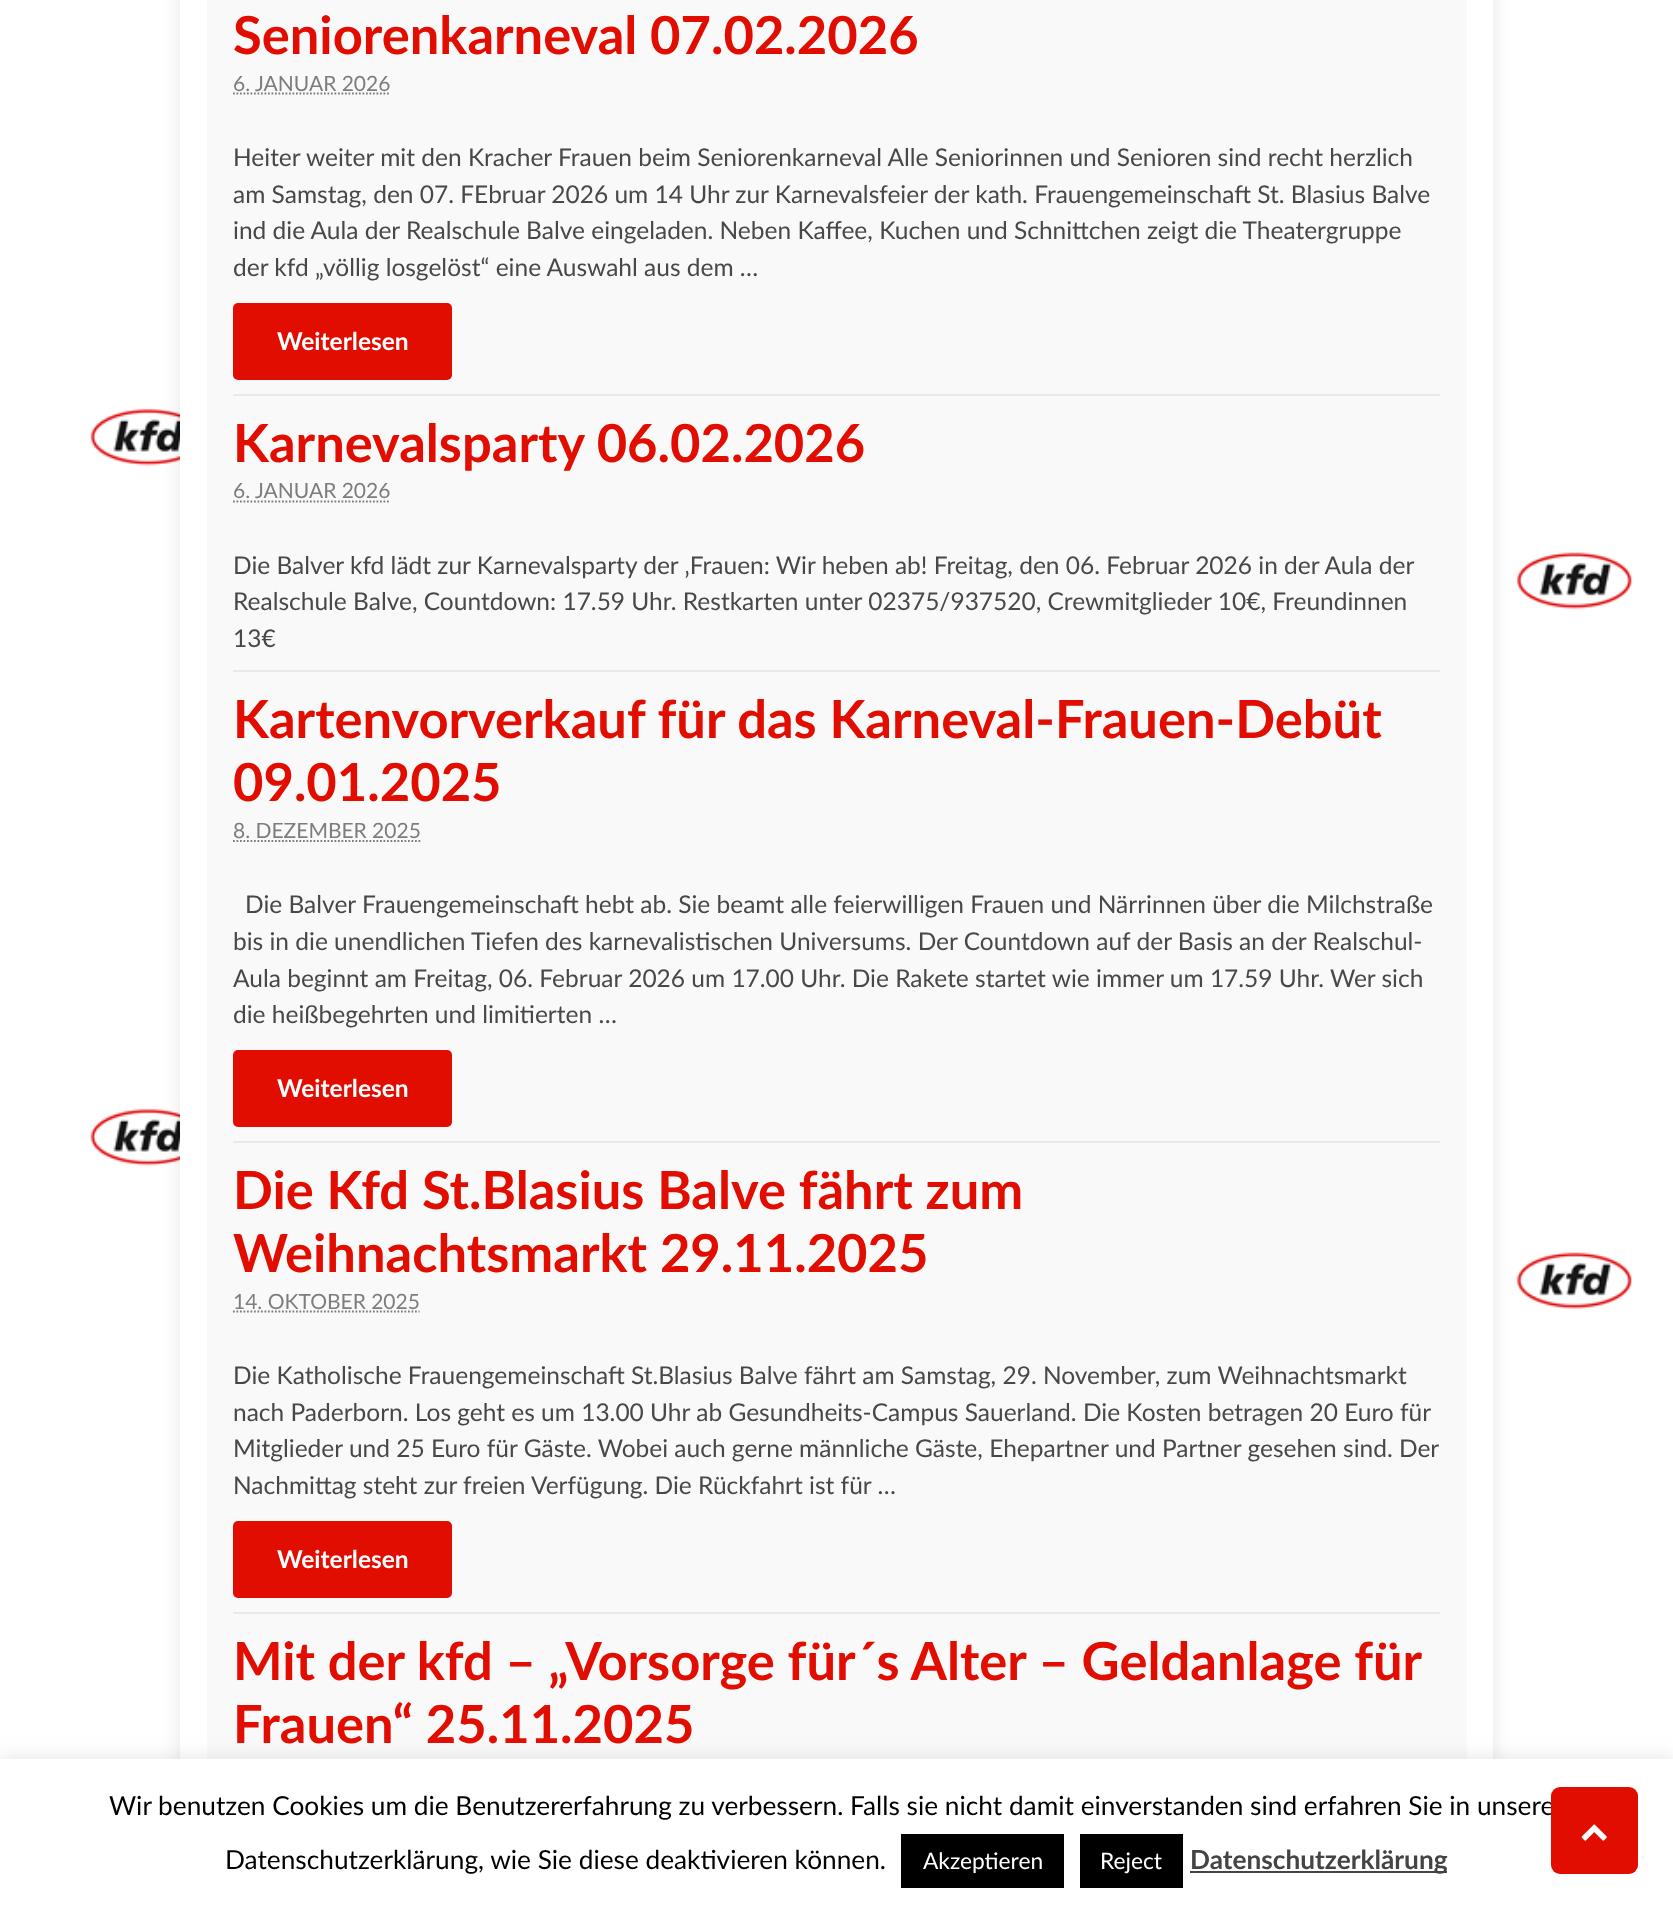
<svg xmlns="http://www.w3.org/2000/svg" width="1673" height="1908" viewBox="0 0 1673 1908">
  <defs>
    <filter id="blur1" x="-50%" y="-200%" width="200%" height="500%"><feGaussianBlur stdDeviation="9"/></filter>
    <filter id="blur2" x="-50%" y="-200%" width="200%" height="500%"><feGaussianBlur stdDeviation="2"/></filter>
  </defs>
  <rect width="100%" height="100%" fill="#ffffff"/>
  <image x="90" y="36" width="1543" height="1723" href="img1.png"/>
  <rect x="180" y="-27" width="1313" height="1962" fill="#000000" fill-opacity="0.1" filter="url(#blur1)"/>
  <rect x="180" y="0" width="1313" height="1759" fill="#ffffff"/>
  <rect x="207" y="0" width="1260" height="1759" fill="#f9f9f9"/>
  <rect x="233" y="394" width="1207" height="2" fill="#e9e9e9"/>
  <text x="233" y="54" font-family="Lato" font-size="52.5" font-weight="bold" fill="#e10d00">Seniorenkarneval 07.02.2026</text>
  <text x="233" y="91" font-family="Lato" font-size="21" fill="#7f7c7f">6. JANUAR 2026</text>
  <path d="M233 93.5H390" fill="none" stroke="#7f7c7f" stroke-width="1.8" stroke-dasharray="1.75 1.75"/>
  <text x="233" y="166" font-family="Lato" font-size="24.5" fill="#4a474b">Heiter weiter mit den Kracher Frauen beim Seniorenkarneval Alle Seniorinnen und Senioren sind recht herzlich</text>
  <text x="233" y="203" font-family="Lato" font-size="24.5" fill="#4a474b">am Samstag, den 07. FEbruar 2026 um 14 Uhr zur Karnevalsfeier der kath. Frauengemeinschaft St. Blasius Balve</text>
  <text x="233" y="239" font-family="Lato" font-size="24.5" fill="#4a474b">ind die Aula der Realschule Balve eingeladen. Neben Kaffee, Kuchen und Schnittchen zeigt die Theatergruppe</text>
  <text x="233" y="276" font-family="Lato" font-size="24.5" fill="#4a474b">der kfd „völlig losgelöst“ eine Auswahl aus dem …</text>
  <rect x="233" y="303" width="219" height="77" rx="5" fill="#e10d00"/>
  <text x="277" y="350" font-family="Lato" font-size="24.5" font-weight="bold" fill="#ffffff">Weiterlesen</text>
  <rect x="233" y="670" width="1207" height="2" fill="#e9e9e9"/>
  <text x="233" y="462" font-family="Lato" font-size="52.5" font-weight="bold" fill="#e10d00">Karnevalsparty 06.02.2026</text>
  <text x="233" y="498" font-family="Lato" font-size="21" fill="#7f7c7f">6. JANUAR 2026</text>
  <path d="M233 501.5H390" fill="none" stroke="#7f7c7f" stroke-width="1.8" stroke-dasharray="1.75 1.75"/>
  <text x="233" y="574" font-family="Lato" font-size="24.5" fill="#4a474b">Die Balver kfd lädt zur Karnevalsparty der ‚Frauen: Wir heben ab! Freitag, den 06. Februar 2026 in der Aula der</text>
  <text x="233" y="610" font-family="Lato" font-size="24.5" fill="#4a474b">Realschule Balve, Countdown: 17.59 Uhr. Restkarten unter 02375/937520, Crewmitglieder 10€, Freundinnen</text>
  <text x="233" y="647" font-family="Lato" font-size="24.5" fill="#4a474b">13€</text>
  <rect x="233" y="1141" width="1207" height="2" fill="#e9e9e9"/>
  <text x="233" y="738" font-family="Lato" font-size="52.5" font-weight="bold" fill="#e10d00">Kartenvorverkauf für das Karneval-Frauen-Debüt</text>
  <text x="233" y="801" font-family="Lato" font-size="52.5" font-weight="bold" fill="#e10d00">09.01.2025</text>
  <text x="233" y="838" font-family="Lato" font-size="21" fill="#7f7c7f">8. DEZEMBER 2025</text>
  <path d="M233 841H420.5" fill="none" stroke="#7f7c7f" stroke-width="1.8" stroke-dasharray="1.75 1.75"/>
  <text x="245" y="913" font-family="Lato" font-size="24.5" fill="#4a474b">Die Balver Frauengemeinschaft hebt ab. Sie beamt alle feierwilligen Frauen und Närrinnen über die Milchstraße</text>
  <text x="233" y="950" font-family="Lato" font-size="24.5" fill="#4a474b">bis in die unendlichen Tiefen des karnevalistischen Universums. Der Countdown auf der Basis an der Realschul-</text>
  <text x="233" y="987" font-family="Lato" font-size="24.5" fill="#4a474b">Aula beginnt am Freitag, 06. Februar 2026 um 17.00 Uhr. Die Rakete startet wie immer um 17.59 Uhr. Wer sich</text>
  <text x="233" y="1023" font-family="Lato" font-size="24.5" fill="#4a474b">die heißbegehrten und limitierten …</text>
  <rect x="233" y="1050" width="219" height="77" rx="5" fill="#e10d00"/>
  <text x="277" y="1097" font-family="Lato" font-size="24.5" font-weight="bold" fill="#ffffff">Weiterlesen</text>
  <rect x="233" y="1612" width="1207" height="2" fill="#e9e9e9"/>
  <text x="233" y="1209" font-family="Lato" font-size="52.5" font-weight="bold" fill="#e10d00">Die Kfd St.Blasius Balve fährt zum</text>
  <text x="233" y="1272" font-family="Lato" font-size="52.5" font-weight="bold" fill="#e10d00">Weihnachtsmarkt 29.11.2025</text>
  <text x="233" y="1309" font-family="Lato" font-size="21" fill="#7f7c7f">14. OKTOBER 2025</text>
  <path d="M233 1311.5H419.5" fill="none" stroke="#7f7c7f" stroke-width="1.8" stroke-dasharray="1.75 1.75"/>
  <text x="233" y="1384" font-family="Lato" font-size="24.5" fill="#4a474b">Die Katholische Frauengemeinschaft St.Blasius Balve fährt am Samstag, 29. November, zum Weihnachtsmarkt</text>
  <text x="233" y="1421" font-family="Lato" font-size="24.5" fill="#4a474b">nach Paderborn. Los geht es um 13.00 Uhr ab Gesundheits-Campus Sauerland. Die Kosten betragen 20 Euro für</text>
  <text x="233" y="1457" font-family="Lato" font-size="24.5" fill="#4a474b">Mitglieder und 25 Euro für Gäste. Wobei auch gerne männliche Gäste, Ehepartner und Partner gesehen sind. Der</text>
  <text x="233" y="1494" font-family="Lato" font-size="24.5" fill="#4a474b">Nachmittag steht zur freien Verfügung. Die Rückfahrt ist für …</text>
  <rect x="233" y="1521" width="219" height="77" rx="5" fill="#e10d00"/>
  <text x="277" y="1568" font-family="Lato" font-size="24.5" font-weight="bold" fill="#ffffff">Weiterlesen</text>
  <text x="233" y="1680" word-spacing="-0.1" font-family="Lato" font-size="52.5" font-weight="bold" fill="#e10d00">Mit der kfd – „Vorsorge für´s Alter – Geldanlage für</text>
  <text x="233" y="1743" font-family="Lato" font-size="52.5" font-weight="bold" fill="#e10d00">Frauen“ 25.11.2025</text>
  <rect x="0" y="1757" width="1673" height="151" fill="#acabab" fill-opacity="0.3" filter="url(#blur1)"/>
  <rect x="0" y="1759" width="1673" height="149" fill="#ffffff"/>
  <text x="109" y="1815" font-family="Lato" font-size="26.25" fill="#000000">Wir benutzen Cookies um die Benutzererfahrung zu verbessern. Falls sie nicht damit einverstanden sind erfahren Sie in unsere</text>
  <text x="225" y="1869" font-family="Lato" font-size="26.25" fill="#000000">Datenschutzerklärung, wie Sie diese deaktivieren können.</text>
  <rect x="901" y="1834" width="163" height="54" fill="#000000"/>
  <text x="923" y="1869" font-family="Lato" font-size="22.75" fill="#ffffff">Akzeptieren</text>
  <rect x="1080" y="1834" width="103" height="54" fill="#000000"/>
  <text x="1100" y="1869" font-family="Lato" font-size="22.75" fill="#ffffff">Reject</text>
  <rect x="1190" y="1871" width="257" height="2" fill="#444444"/>
  <text x="1190" y="1869" font-family="Lato" font-size="26.25" font-weight="bold" fill="#444444">Datenschutzerklärung</text>
  <rect x="1551" y="1787" width="87" height="87" rx="9" fill="#ffffff" fill-opacity="0.3" filter="url(#blur2)"/>
  <rect x="1551" y="1787" width="87" height="87" rx="9" fill="#e10d00"/>
  <image x="1581" y="1824" width="26" height="17" href="img2.png"/>
</svg>
